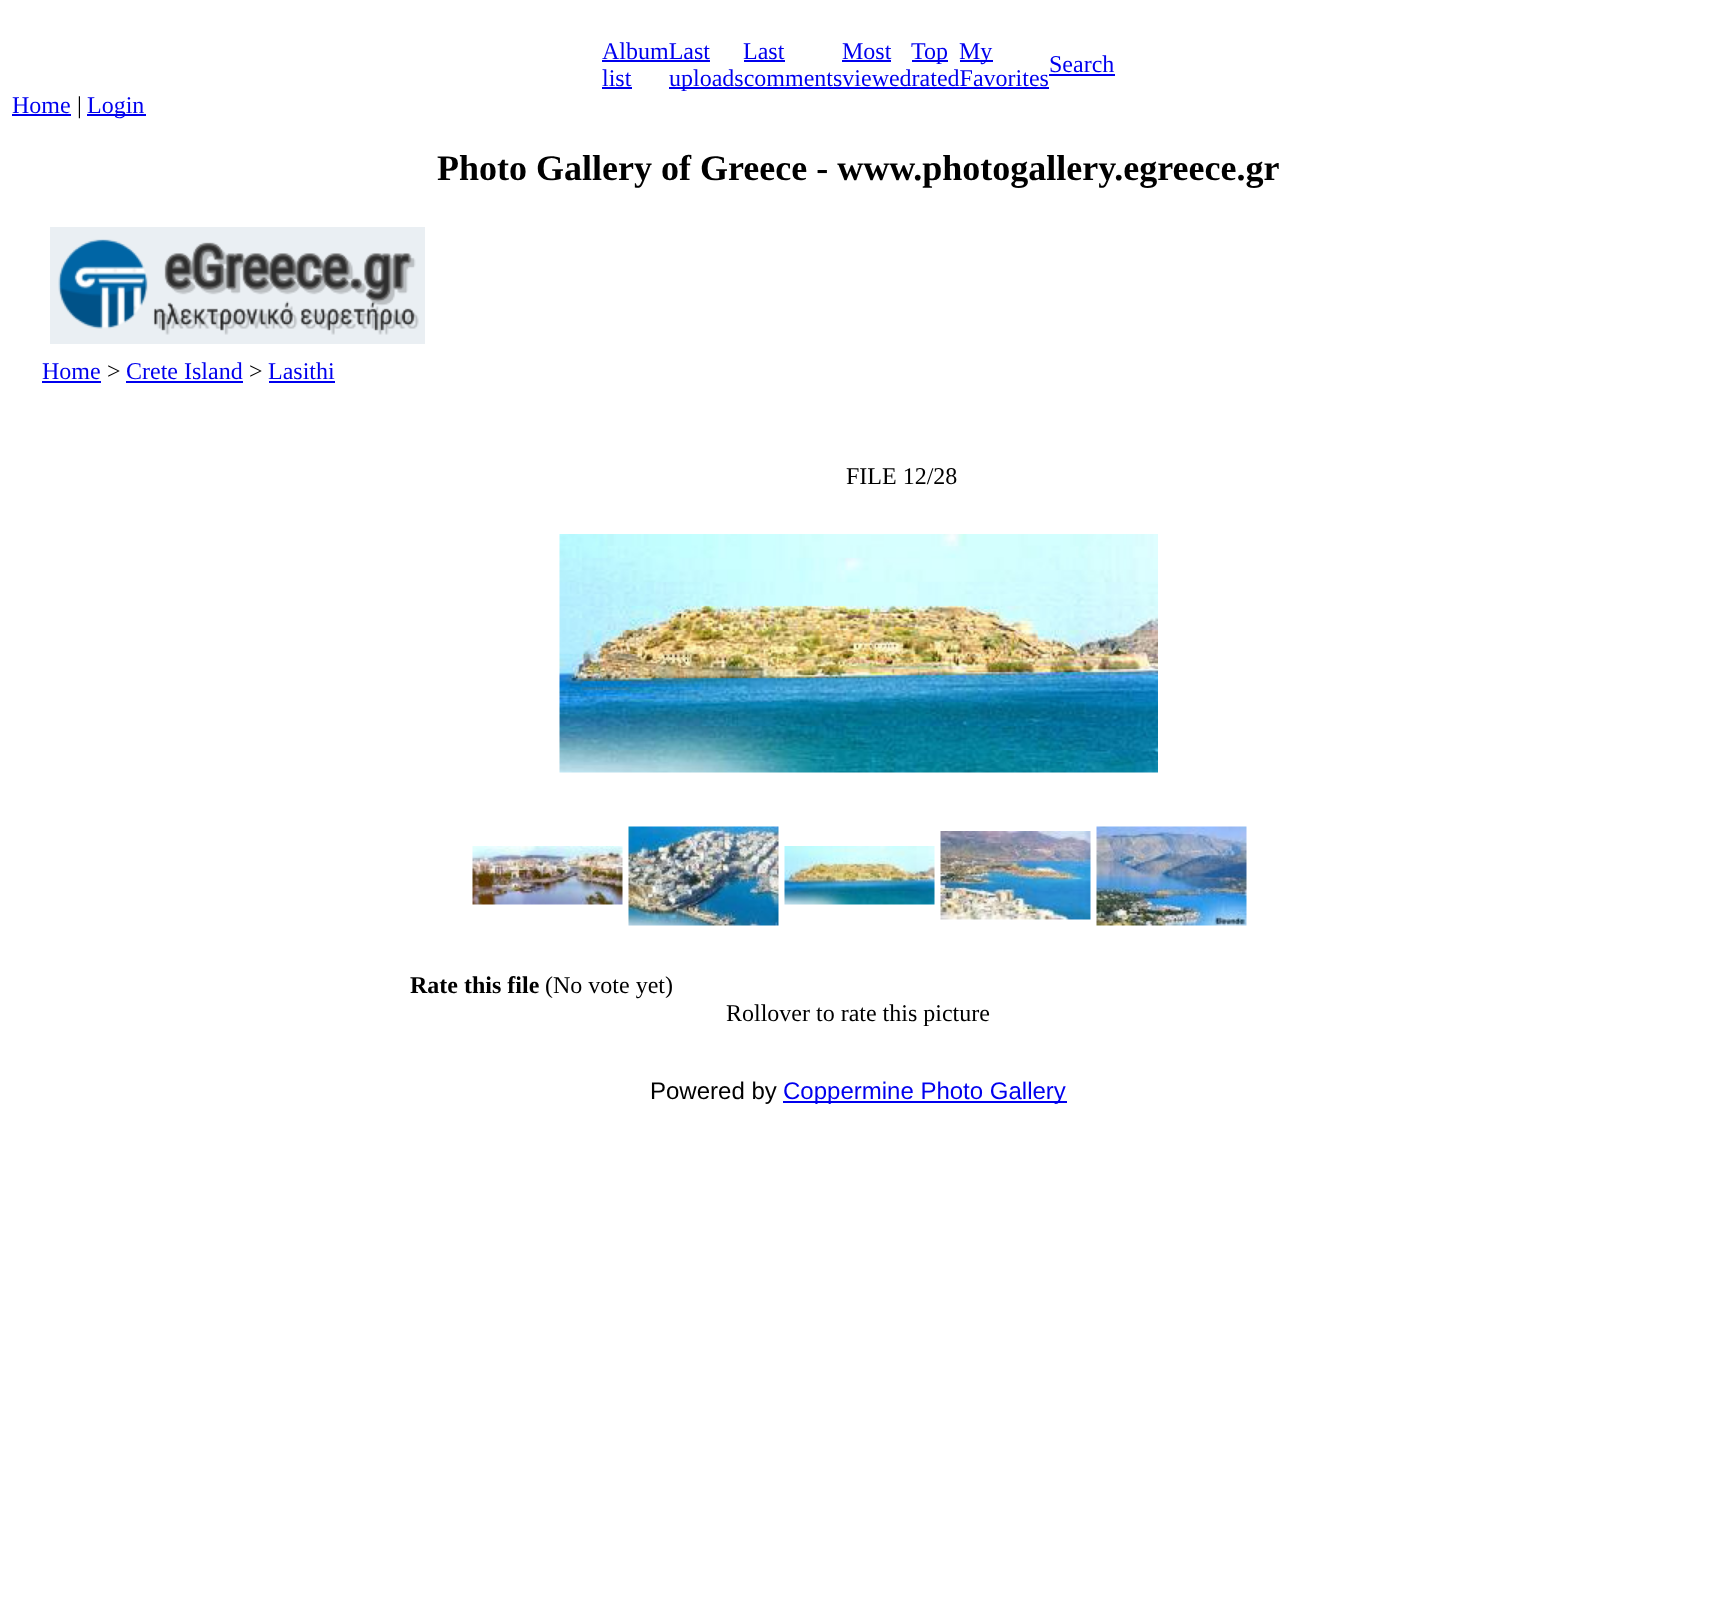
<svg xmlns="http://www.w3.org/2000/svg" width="1716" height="1609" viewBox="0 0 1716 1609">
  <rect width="100%" height="100%" fill="#ffffff"/>
  <text x="602" y="59" font-family="Liberation Serif" font-size="24" fill="#0000ee">AlbumLast</text>
  <rect x="602" y="60" width="108" height="2" fill="#0000ee"/>
  <text x="602" y="86" font-family="Liberation Serif" font-size="24" fill="#0000ee">list</text>
  <rect x="602" y="87" width="30" height="2" fill="#0000ee"/>
  <text x="743" y="59" font-family="Liberation Serif" font-size="24" fill="#0000ee">Last</text>
  <rect x="744" y="60" width="41" height="2" fill="#0000ee"/>
  <text x="842" y="59" font-family="Liberation Serif" font-size="24" fill="#0000ee">Most</text>
  <rect x="842" y="60" width="49" height="2" fill="#0000ee"/>
  <rect x="912" y="60" width="36" height="2" fill="#0000ee"/>
  <text x="911" y="59" font-family="Liberation Serif" font-size="24" fill="#0000ee">Top</text>
  <rect x="960" y="60" width="33" height="2" fill="#0000ee"/>
  <text x="959" y="59" font-family="Liberation Serif" font-size="24" fill="#0000ee">My</text>
  <text x="1049" y="72" font-family="Liberation Serif" font-size="24" fill="#0000ee">Search</text>
  <rect x="1049" y="74" width="66" height="2" fill="#0000ee"/>
  <rect x="669" y="87" width="380" height="2" fill="#0000ee"/>
  <text x="669" y="86" font-family="Liberation Serif" font-size="24" fill="#0000ee">uploadscommentsviewedratedFavorites</text>
  <text x="12" y="113" font-family="Liberation Serif" font-size="24" fill="#0000ee">Home</text>
  <rect x="12" y="114" width="59" height="2" fill="#0000ee"/>
  <text x="77" y="113" font-family="Liberation Serif" font-size="24" fill="#000000">|</text>
  <rect x="87" y="114" width="59" height="2" fill="#0000ee"/>
  <text x="87" y="113" font-family="Liberation Serif" font-size="24" fill="#0000ee">Login</text>
  <text x="437" y="180" font-family="Liberation Serif" font-size="36" font-weight="bold" fill="#000000">Photo Gallery of Greece - www.photogallery.egreece.gr</text>
  <rect x="50" y="227" width="375" height="117" fill="#eaeff3"/>
  <image x="58" y="239" width="361" height="96" href="img1.png"/>
  <text x="42" y="379" font-family="Liberation Serif" font-size="24" fill="#0000ee">Home</text>
  <rect x="42" y="381" width="59" height="2" fill="#0000ee"/>
  <text x="107" y="379" font-family="Liberation Serif" font-size="24" fill="#000000">&gt;</text>
  <text x="126" y="379" font-family="Liberation Serif" font-size="24" fill="#0000ee">Crete Island</text>
  <rect x="126" y="381" width="117" height="2" fill="#0000ee"/>
  <text x="249" y="379" font-family="Liberation Serif" font-size="24" fill="#000000">&gt;</text>
  <text x="268" y="379" font-family="Liberation Serif" font-size="24" fill="#0000ee">Lasithi</text>
  <rect x="269" y="381" width="66" height="2" fill="#0000ee"/>
  <text x="846" y="484" font-family="Liberation Serif" font-size="24" fill="#000000">FILE 12/28</text>
  <image x="559" y="534" width="599" height="239" href="img2.png"/>
  <image x="472" y="846" width="151" height="59" href="img3.png"/>
  <image x="628" y="826" width="151" height="100" href="img4.png"/>
  <image x="784" y="846" width="151" height="59" href="img5.png"/>
  <image x="940" y="831" width="151" height="89" href="img6.png"/>
  <image x="1096" y="826" width="151" height="100" href="img7.png"/>
  <text x="410" y="993" font-family="Liberation Serif" font-size="24" font-weight="bold" fill="#000000">Rate this file</text>
  <text x="545" y="993" font-family="Liberation Serif" font-size="24" fill="#000000">(No vote yet)</text>
  <text x="726" y="1021" font-family="Liberation Serif" font-size="24" fill="#000000">Rollover to rate this picture</text>
  <text x="650" y="1099" font-family="Liberation Sans" font-size="24" fill="#000000">Powered by</text>
  <rect x="783" y="1101" width="284" height="2" fill="#0000ee"/>
  <text x="783" y="1099" font-family="Liberation Sans" font-size="24" fill="#0000ee">Coppermine Photo Gallery</text>
</svg>
